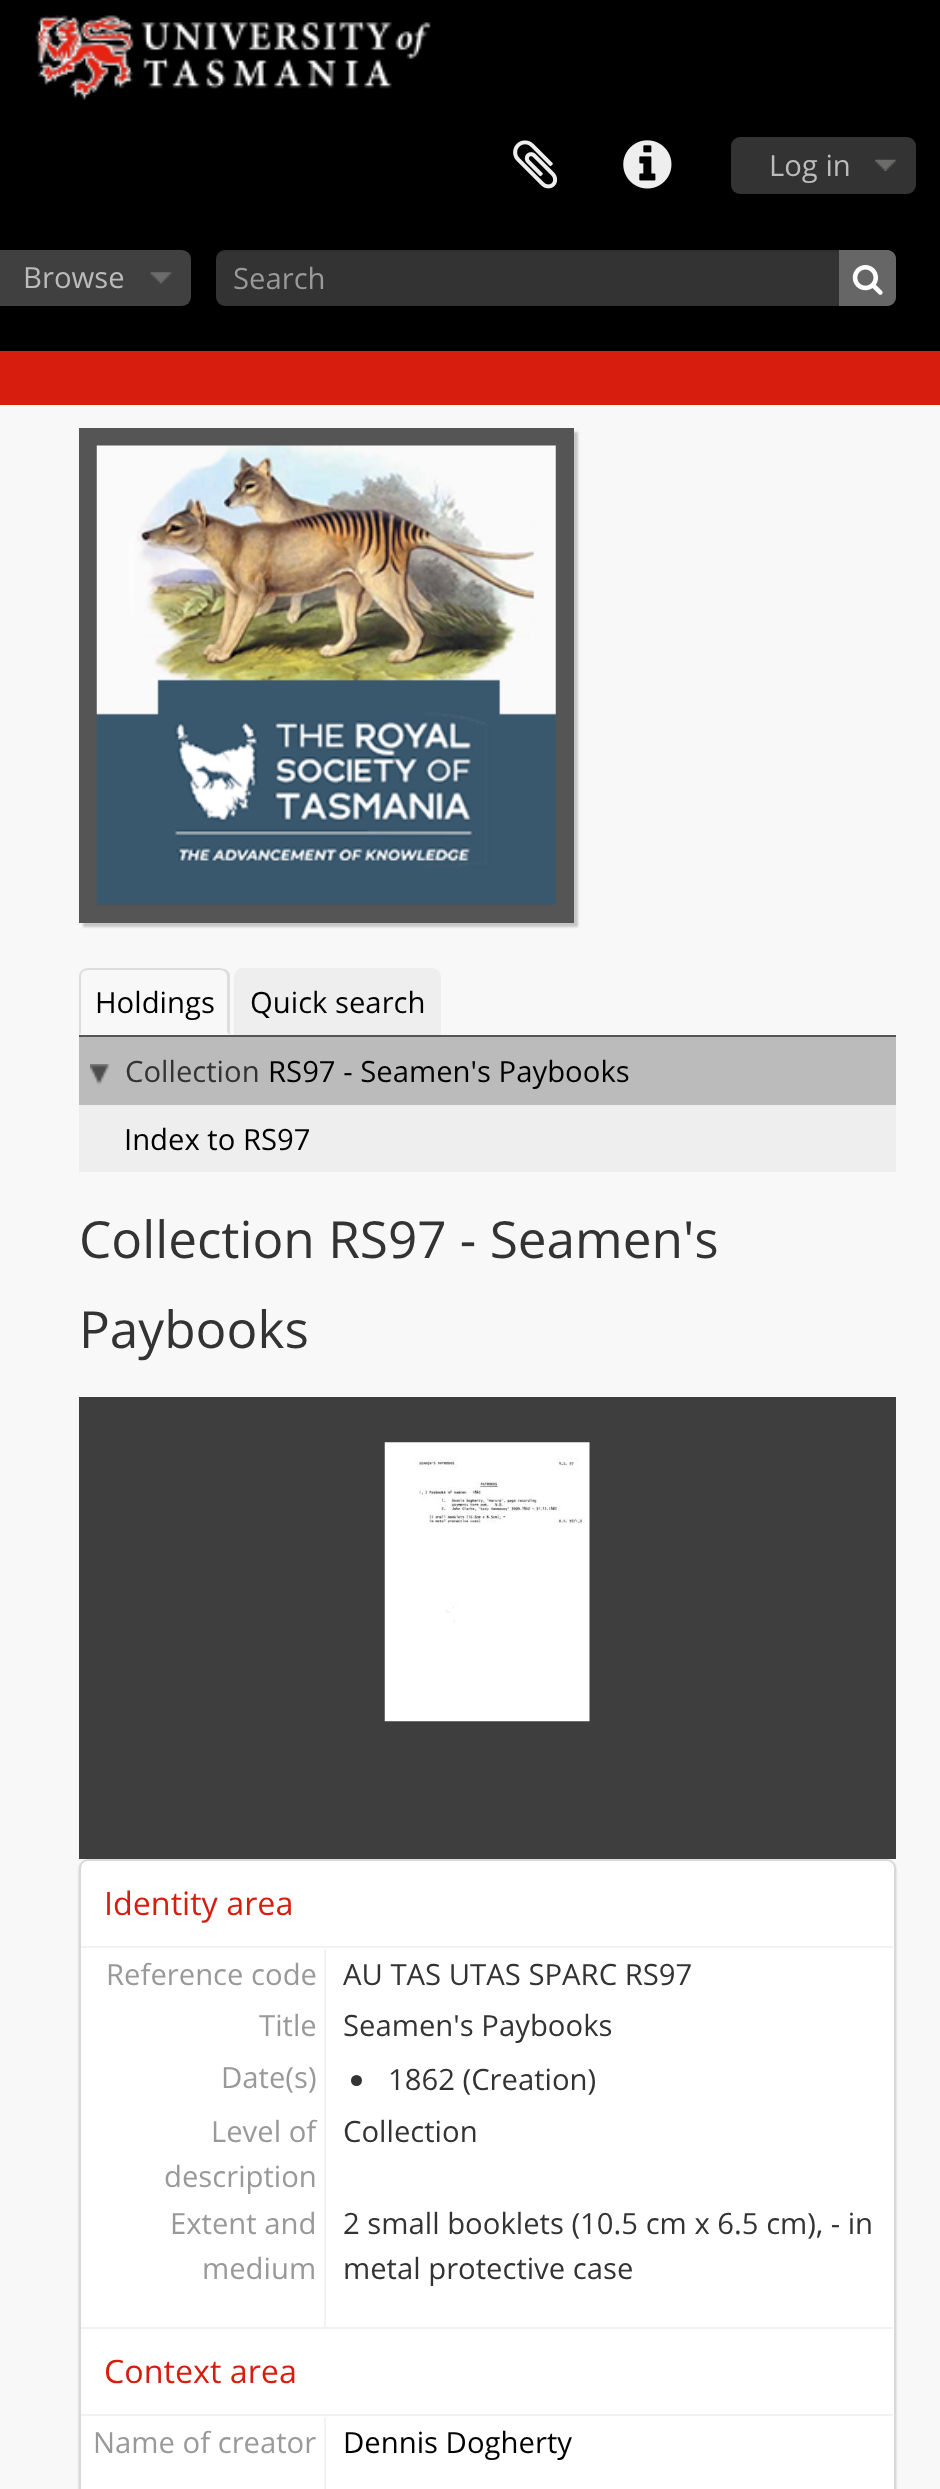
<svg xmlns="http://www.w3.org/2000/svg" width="940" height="2489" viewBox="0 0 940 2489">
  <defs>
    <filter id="blur1" x="-50%" y="-200%" width="200%" height="500%"><feGaussianBlur stdDeviation="1"/></filter>
  </defs>
  <rect width="100%" height="100%" fill="#f8f8f8"/>
  <rect x="0" y="0" width="940" height="351" fill="#000000"/>
  <image x="35" y="15" width="396" height="85" href="img1.png"/>
  <image x="513" y="140" width="45" height="49" href="img2.png"/>
  <image x="623" y="140" width="49" height="49" href="img3.png"/>
  <rect x="731" y="137" width="185" height="57" rx="9" fill="#333333"/>
  <image x="875" y="159" width="21" height="12" href="img4.png"/>
  <text x="769" y="176" font-family="Open Sans" font-size="29.25" fill="#bbbbbb">Log in</text>
  <rect x="-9" y="250" width="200" height="56" rx="9" fill="#404040"/>
  <image x="150" y="272" width="22" height="12" href="img5.png"/>
  <text x="23" y="288" font-family="Open Sans" font-size="29.25" fill="#bbbbbb">Browse</text>
  <rect x="216" y="250" width="680" height="56" rx="9" fill="#333333"/>
  <path d="M225 252H886C891 252 896 256 896 261V259C896 254 892 250 887 250H225C220 250 216 254 216 259V261C216 256 220 252 225 252Z" fill="#000000" fill-opacity="0.07"/>
  <text x="233" y="289" font-family="Open Sans" font-size="29.25" fill="#999999">Search</text>
  <path d="M839 250H887C892 250 896 254 896 259V297C896 302 892 306 887 306H839Z" fill="#666666"/>
  <image x="852" y="265" width="31" height="30" href="img6.png"/>
  <rect x="0" y="351" width="940" height="54" fill="#d71d0d"/>
  <rect x="83" y="432" width="495" height="495" fill="#191919" fill-opacity="0.2" filter="url(#blur1)"/>
  <rect x="79" y="428" width="495" height="495" fill="#555555"/>
  <image x="96" y="445" width="460" height="460" href="img7.png"/>
  <rect x="79" y="1035" width="817" height="2" fill="#555555"/>
  <path d="M88 968C86 968 83 969 82 970L83 972C84 971 86 970 88 970H220C222 970 224 971 225 972L227 970C225 969 222 968 220 968Z" fill="#dddddd"/>
  <path d="M227 970L230 974V1035L227 1032V976C227 975 226 973 225 972Z" fill="#dddddd"/>
  <path d="M82 970C80 972 79 974 79 976V1035L81 1033V976C81 974 82 973 83 972Z" fill="#dddddd"/>
  <text x="95" y="1013" font-family="Open Sans" font-size="29.25" fill="#000000">Holdings</text>
  <path d="M243 968H432C437 968 441 972 441 977V1035H234V977C234 972 238 968 243 968Z" fill="#eeeeee"/>
  <text x="250" y="1013" font-family="Open Sans" font-size="29.25" fill="#000000">Quick search</text>
  <rect x="79" y="1105" width="817" height="67" fill="#eeeeee"/>
  <rect x="79" y="1037" width="817" height="68" fill="#bbbbbb"/>
  <image x="90" y="1064" width="20" height="21" href="img8.png"/>
  <text x="125" y="1082" font-family="Open Sans" font-size="29.25" fill="#333333">Collection</text>
  <text x="268" y="1082" font-family="Open Sans" font-size="29.25" fill="#000000">RS97 - Seamen's Paybooks</text>
  <text x="124" y="1150" font-family="Open Sans" font-size="29.25" fill="#000000">Index to RS97</text>
  <text x="79" y="1258" font-family="Open Sans" font-size="51.25" fill="#333333">Collection RS97 - Seamen's</text>
  <text x="79" y="1348" font-family="Open Sans" font-size="51.25" fill="#333333">Paybooks</text>
  <rect x="79" y="1397" width="817" height="462" fill="#3e3e3e"/>
  <image x="384" y="1442" width="206" height="280" href="img9.png"/>
  <rect x="79" y="1861" width="817" height="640" rx="9" fill="#000000" fill-opacity="0.2" filter="url(#blur1)"/>
  <rect x="80" y="1860" width="815" height="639" rx="8" fill="#ffffff" stroke="#d9d9d9" stroke-width="2"/>
  <rect x="81" y="1946" width="812" height="2" fill="#f2f2f2"/>
  <text x="104" y="1915" font-family="Open Sans" font-size="32.25" fill="#d71d0d">Identity area</text>
  <rect x="324" y="1949" width="2" height="378" fill="#f2f2f2"/>
  <text x="106" y="1985" font-family="Open Sans" font-size="29.25" fill="#999999">Reference code</text>
  <text x="343" y="1985" font-family="Open Sans" font-size="29.25" fill="#333333">AU TAS UTAS SPARC RS97</text>
  <text x="259" y="2036" font-family="Open Sans" font-size="29.25" fill="#999999">Title</text>
  <text x="343" y="2036" font-family="Open Sans" font-size="29.25" fill="#333333">Seamen's Paybooks</text>
  <text x="221" y="2088" font-family="Open Sans" font-size="29.25" fill="#999999">Date(s)</text>
  <circle cx="356.5" cy="2080.5" r="5.5" fill="#333333"/>
  <text x="388" y="2090" font-family="Open Sans" font-size="29.25" fill="#333333">1862 (Creation)</text>
  <text x="211" y="2142" font-family="Open Sans" font-size="29.25" fill="#999999">Level of</text>
  <text x="164" y="2187" font-family="Open Sans" font-size="29.25" fill="#999999">description</text>
  <text x="343" y="2142" font-family="Open Sans" font-size="29.25" fill="#333333">Collection</text>
  <text x="170" y="2234" font-family="Open Sans" font-size="29.25" fill="#999999">Extent and</text>
  <text x="202" y="2279" font-family="Open Sans" font-size="29.25" fill="#999999">medium</text>
  <text x="343" y="2234" font-family="Open Sans" font-size="29.25" fill="#333333">2 small booklets (10.5 cm x 6.5 cm), - in</text>
  <text x="343" y="2279" font-family="Open Sans" font-size="29.25" fill="#333333">metal protective case</text>
  <rect x="81" y="2327" width="812" height="2" fill="#f2f2f2"/>
  <rect x="81" y="2414" width="812" height="2" fill="#f2f2f2"/>
  <text x="104" y="2383" font-family="Open Sans" font-size="32.25" fill="#d71d0d">Context area</text>
  <rect x="324" y="2417" width="2" height="72" fill="#f2f2f2"/>
  <text x="93" y="2453" font-family="Open Sans" font-size="29.25" fill="#999999">Name of creator</text>
  <text x="343" y="2453" font-family="Open Sans" font-size="29.25" fill="#000000">Dennis Dogherty</text>
</svg>
